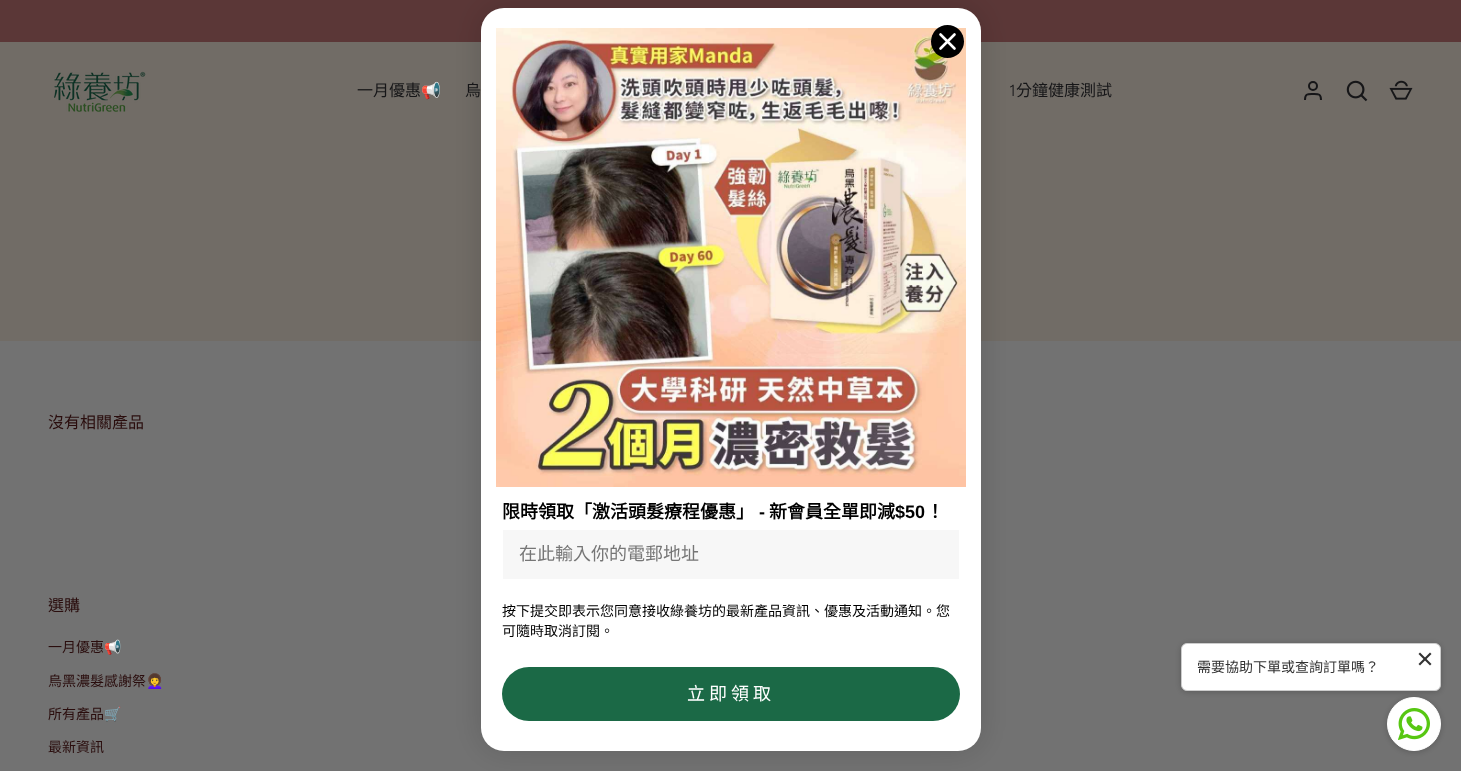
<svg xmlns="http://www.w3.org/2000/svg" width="1461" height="771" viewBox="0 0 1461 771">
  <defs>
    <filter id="blur1" x="-50%" y="-200%" width="200%" height="500%"><feGaussianBlur stdDeviation="15"/></filter>
    <filter id="blur2" x="-50%" y="-200%" width="200%" height="500%"><feGaussianBlur stdDeviation="3"/></filter>
  </defs>
  <rect width="100%" height="100%" fill="#727272"/>
  <rect x="0" y="0" width="1461" height="42" fill="#5b3737"/>
  <rect x="0" y="42" width="1461" height="299" fill="#716c66"/>
  <image x="54" y="71" width="92" height="41" href="img1.png"/>
  <text x="357" y="96" font-family="Noto Sans CJK TC" font-size="16" fill="#161618">一月優惠</text>
  <text x="421" y="96" font-family="Noto Color Emoji" font-size="16" fill="#161618">📢</text>
  <text x="465" y="96" font-family="Noto Sans CJK TC" font-size="16" fill="#161618">烏</text>
  <text x="1009" y="96" font-family="Figtree" font-size="16" font-weight="300" fill="#161618">1</text>
  <text x="1016" y="96" font-family="Noto Sans CJK TC" font-size="16" fill="#161618">分鐘健康測試</text>
  <circle cx="1313" cy="86" r="4" fill="none" stroke="#161618" stroke-width="2"/>
  <path d="M1321 100C1321 93.5 1318.5 94 1313 94C1307.5 94 1305 93.5 1305 100" fill="none" stroke="#161618" stroke-width="2"/>
  <image x="1346" y="80" width="22" height="22" href="img2.png"/>
  <image x="1389" y="80" width="24" height="20" href="img3.png"/>
  <text x="48" y="428" font-family="Noto Sans CJK TC" font-size="16" fill="#2a0d0d">沒有相關產品</text>
  <text x="48" y="611" font-family="Noto Sans CJK TC" font-size="16" fill="#2a0d0d">選購</text>
  <text x="48" y="652" font-family="Noto Sans CJK TC" font-size="14" fill="#2a0d0d">一月優惠</text>
  <text x="104" y="652" font-family="Noto Color Emoji" font-size="14" fill="#2a0d0d">📢</text>
  <text x="48" y="686" font-family="Noto Sans CJK TC" font-size="14" fill="#2a0d0d">烏黑濃髮感謝祭</text>
  <text x="146" y="686" font-family="Noto Color Emoji" font-size="14" fill="#2a0d0d">👩‍🦱</text>
  <text x="48" y="719" font-family="Noto Sans CJK TC" font-size="14" fill="#2a0d0d">所有產品</text>
  <text x="104" y="719" font-family="Noto Color Emoji" font-size="14" fill="#2a0d0d">🛒</text>
  <text x="48" y="752" font-family="Noto Sans CJK TC" font-size="14" fill="#2a0d0d">最新資訊</text>
  <rect x="481" y="8" width="500" height="743" rx="23" fill="#000000" fill-opacity="0.15" filter="url(#blur1)"/>
  <rect x="481" y="8" width="500" height="743" rx="23" fill="#ffffff"/>
  <image x="496" y="28" width="470" height="459" href="img4.png"/>
  <circle cx="947.5" cy="41.5" r="16.5" fill="#000000"/>
  <path d="M940.5 34.5L954.5 48.5M940.5 48.5L954.5 34.5Z" fill="none" stroke="#ffffff" stroke-width="2.6" stroke-linecap="round" stroke-linejoin="round"/>
  <text x="502" y="518" font-family="Noto Sans CJK TC" font-size="18" font-weight="bold" fill="#000000">限時領取「激活頭髮療程優惠」</text>
  <text x="759" y="518" font-family="Liberation Sans" font-size="18" font-weight="bold" fill="#000000">-</text>
  <text x="769" y="518" font-family="Noto Sans CJK TC" font-size="18" font-weight="bold" fill="#000000">新會員全單即減</text>
  <text x="895" y="518" font-family="Liberation Sans" font-size="18" font-weight="bold" fill="#000000">$50</text>
  <text x="926" y="518" font-family="Noto Sans CJK TC" font-size="18" font-weight="bold" fill="#000000">！</text>
  <rect x="503" y="530" width="456" height="49" fill="#f7f7f7"/>
  <text x="519" y="560" font-family="Noto Sans CJK TC" font-size="18" fill="#767676">在此輸入你的電郵地址</text>
  <text x="502" y="616" font-family="Noto Sans CJK TC" font-size="14" fill="#000000">按下提交即表示您同意接收綠養坊的最新產品資訊、優惠及活動通知。您</text>
  <text x="502" y="636" font-family="Noto Sans CJK TC" font-size="14" fill="#000000">可隨時取消訂閱。</text>
  <rect x="502" y="667" width="458" height="54" rx="27" fill="#1b6946"/>
  <text x="687" y="700" font-family="Noto Sans CJK TC" font-size="18" letter-spacing="4" fill="#ffffff">立即領取</text>
  <rect x="1181" y="644" width="260" height="48" rx="6" fill="#1b1b1b" fill-opacity="0.2" filter="url(#blur2)"/>
  <rect x="1181.5" y="643.5" width="259" height="47" rx="5.5" fill="#ffffff" stroke="#cccccc"/>
  <text x="1197" y="672" font-family="Noto Sans CJK TC" font-size="14" fill="#333333">需要協助下單或查詢訂單嗎？</text>
  <path d="M1420 652.5L1431.5 664L1430 665.5L1418.5 654Z" fill="#333333"/>
  <path d="M1430 652.5L1431.5 654L1420 665.5L1418.5 664Z" fill="#333333"/>
  <rect x="1387" y="698" width="54" height="54" rx="27" fill="#1b1b1b" fill-opacity="0.2" filter="url(#blur2)"/>
  <circle cx="1414" cy="724" r="26.5" fill="#ffffff" stroke="#ffffff"/>
  <image x="1398" y="708" width="32" height="32" href="img5.png"/>
</svg>
